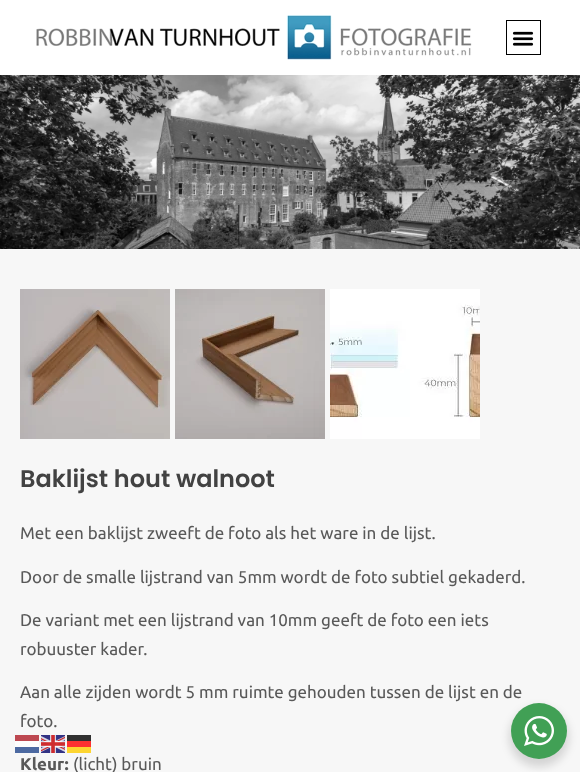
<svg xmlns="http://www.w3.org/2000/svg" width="580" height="772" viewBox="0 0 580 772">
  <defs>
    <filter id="blur1" x="-50%" y="-200%" width="200%" height="500%"><feGaussianBlur stdDeviation="4"/></filter>
  </defs>
  <rect width="100%" height="100%" fill="#f7f7f7"/>
  <rect x="0" y="0" width="580" height="75" fill="#ffffff"/>
  <image x="36" y="15" width="436" height="45" href="img1.png"/>
  <rect x="506.5" y="20.5" width="34" height="34" fill="none" stroke="#000000"/>
  <image x="512" y="31" width="22" height="15" href="img2.png"/>
  <image x="0" y="75" width="580" height="174" href="img3.png"/>
  <image x="20" y="289" width="150" height="150" href="img4.png"/>
  <image x="175" y="289" width="150" height="150" href="img5.png"/>
  <image x="330" y="289" width="150" height="150" href="img6.png"/>
  <text x="20" y="487" font-family="Poppins" font-size="24" font-weight="600" fill="#424242">Baklijst hout walnoot</text>
  <text x="20" y="539" font-family="Ubuntu" font-size="17" fill="#595959">Met een baklijst zweeft de foto als het ware in de lijst.</text>
  <text x="20" y="583" font-family="Ubuntu" font-size="17" fill="#595959">Door de smalle lijstrand van 5mm wordt de foto subtiel gekaderd.</text>
  <text x="20" y="626" font-family="Ubuntu" font-size="17" fill="#595959">De variant met een lijstrand van 10mm geeft de foto een iets</text>
  <text x="20" y="655" font-family="Ubuntu" font-size="17" fill="#595959">robuuster kader.</text>
  <text x="20" y="698" font-family="Ubuntu" font-size="17" fill="#595959">Aan alle zijden wordt 5 mm ruimte gehouden tussen de lijst en de</text>
  <text x="20" y="727" font-family="Ubuntu" font-size="17" fill="#595959">foto.</text>
  <text x="20" y="770" font-family="Ubuntu" font-size="17" font-weight="bold" fill="#595959">Kleur:</text>
  <text x="73" y="770" font-family="Ubuntu" font-size="17" fill="#595959">(licht) bruin</text>
  <rect x="509" y="707" width="60" height="60" rx="30" fill="#000000" fill-opacity="0.14" filter="url(#blur1)"/>
  <circle cx="539" cy="731" r="28" fill="#41a055"/>
  <image x="524" y="716" width="30" height="30" href="img7.png"/>
  <rect x="15" y="735" width="24" height="6" fill="#bd4851"/>
  <image x="41" y="735" width="24" height="18" href="img8.png"/>
  <rect x="67" y="735" width="24" height="6" fill="#313131"/>
  <rect x="15" y="741" width="24" height="6" fill="#fdfdfd"/>
  <rect x="67" y="741" width="24" height="6" fill="#fd3131"/>
  <rect x="15" y="747" width="24" height="6" fill="#4c69a1"/>
  <rect x="67" y="747" width="24" height="6" fill="#fdd531"/>
</svg>
